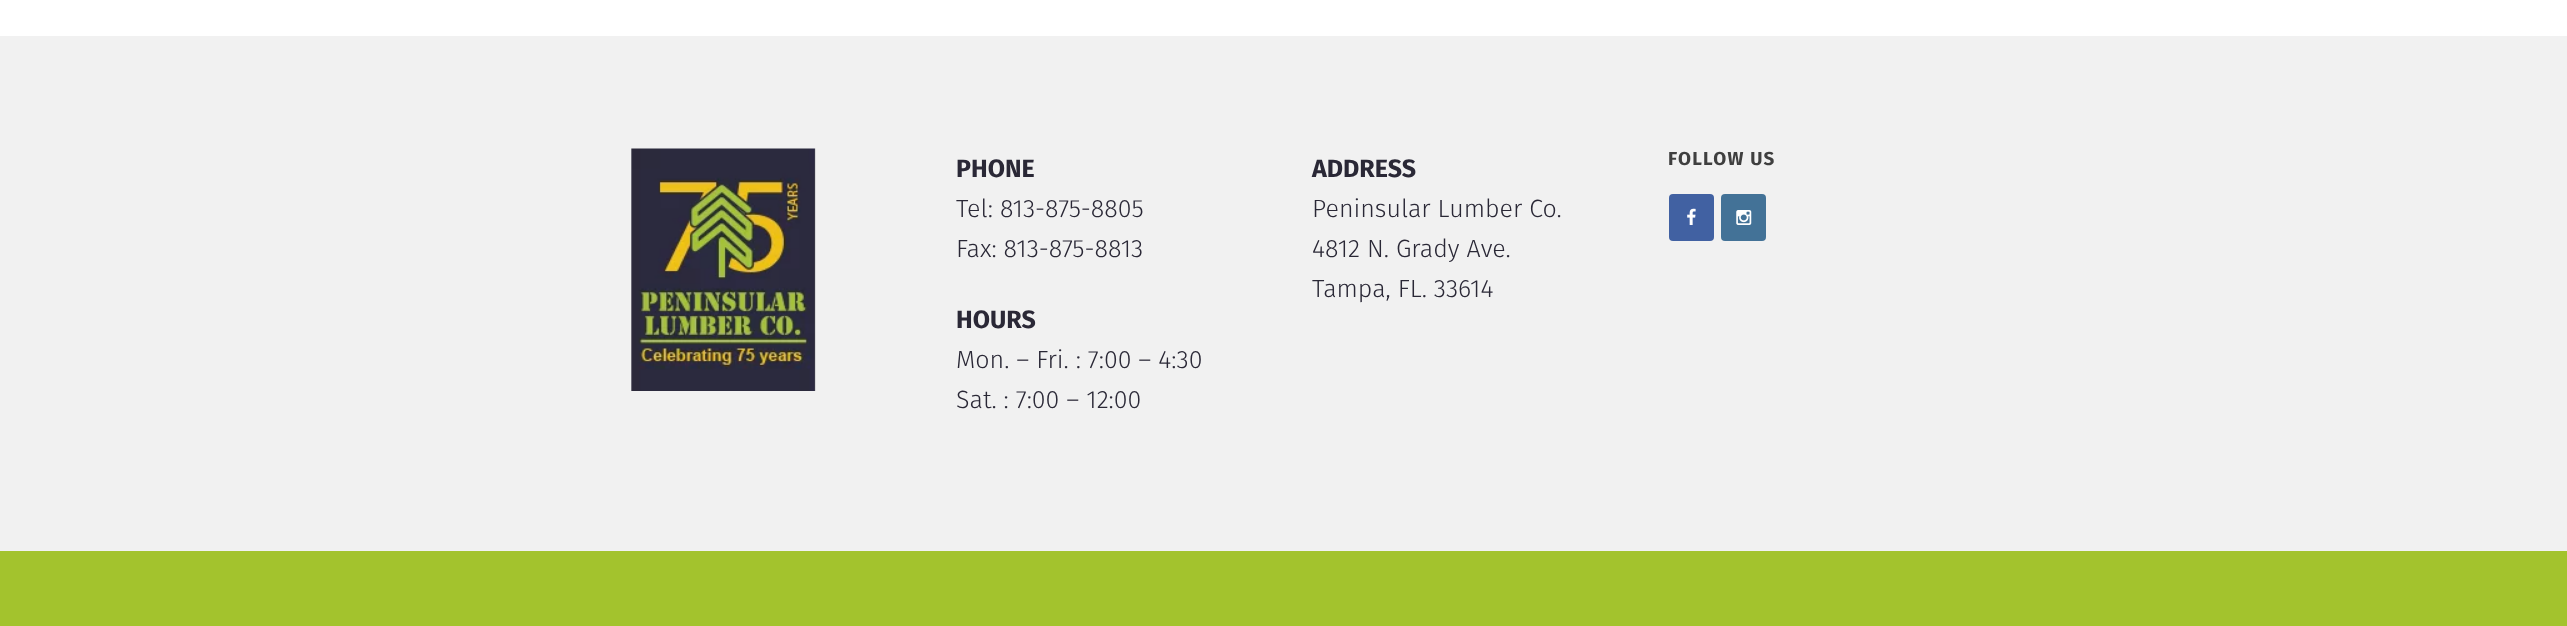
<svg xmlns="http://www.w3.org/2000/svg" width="2567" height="626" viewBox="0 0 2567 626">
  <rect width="100%" height="100%" fill="#ffffff"/>
  <rect x="0" y="36" width="2567" height="515" fill="#f1f1f1"/>
  <image x="631" y="148" width="185" height="243" href="img1.png"/>
  <text x="956" y="177" font-family="Fira Sans" font-size="25" font-weight="bold" fill="#2a2836">PHONE</text>
  <text x="956" y="217" font-family="Fira Sans" font-size="25" font-weight="300" fill="#2a2836">Tel: 813-875-8805</text>
  <text x="956" y="257" font-family="Fira Sans" font-size="25" font-weight="300" fill="#2a2836">Fax: 813-875-8813</text>
  <text x="956" y="328" font-family="Fira Sans" font-size="25" font-weight="bold" fill="#2a2836">HOURS</text>
  <text x="956" y="368" font-family="Fira Sans" font-size="25" font-weight="300" fill="#2a2836">Mon. – Fri. : 7:00 – 4:30</text>
  <text x="956" y="408" font-family="Fira Sans" font-size="25" font-weight="300" fill="#2a2836">Sat. : 7:00 – 12:00</text>
  <text x="1312" y="177" font-family="Fira Sans" font-size="25" font-weight="bold" fill="#2a2836">ADDRESS</text>
  <text x="1312" y="217" font-family="Fira Sans" font-size="25" font-weight="300" fill="#2a2836">Peninsular Lumber Co.</text>
  <text x="1312" y="257" font-family="Fira Sans" font-size="25" font-weight="300" fill="#2a2836">4812 N. Grady Ave.</text>
  <text x="1312" y="297" font-family="Fira Sans" font-size="25" font-weight="300" fill="#2a2836">Tampa, FL. 33614</text>
  <text x="1668" y="165" font-family="Fira Sans" font-size="18.75" font-weight="bold" letter-spacing="1.25" fill="#3f3f3f">FOLLOW US</text>
  <rect x="1669" y="194" width="45" height="47" rx="4" fill="#4161a2"/>
  <image x="1687" y="208" width="9" height="17" href="img2.png"/>
  <rect x="1721" y="194" width="45" height="47" rx="4" fill="#437297"/>
  <image x="1736" y="210" width="16" height="15" href="img3.png"/>
  <rect x="0" y="551" width="2567" height="75" fill="#a3c32d"/>
</svg>
